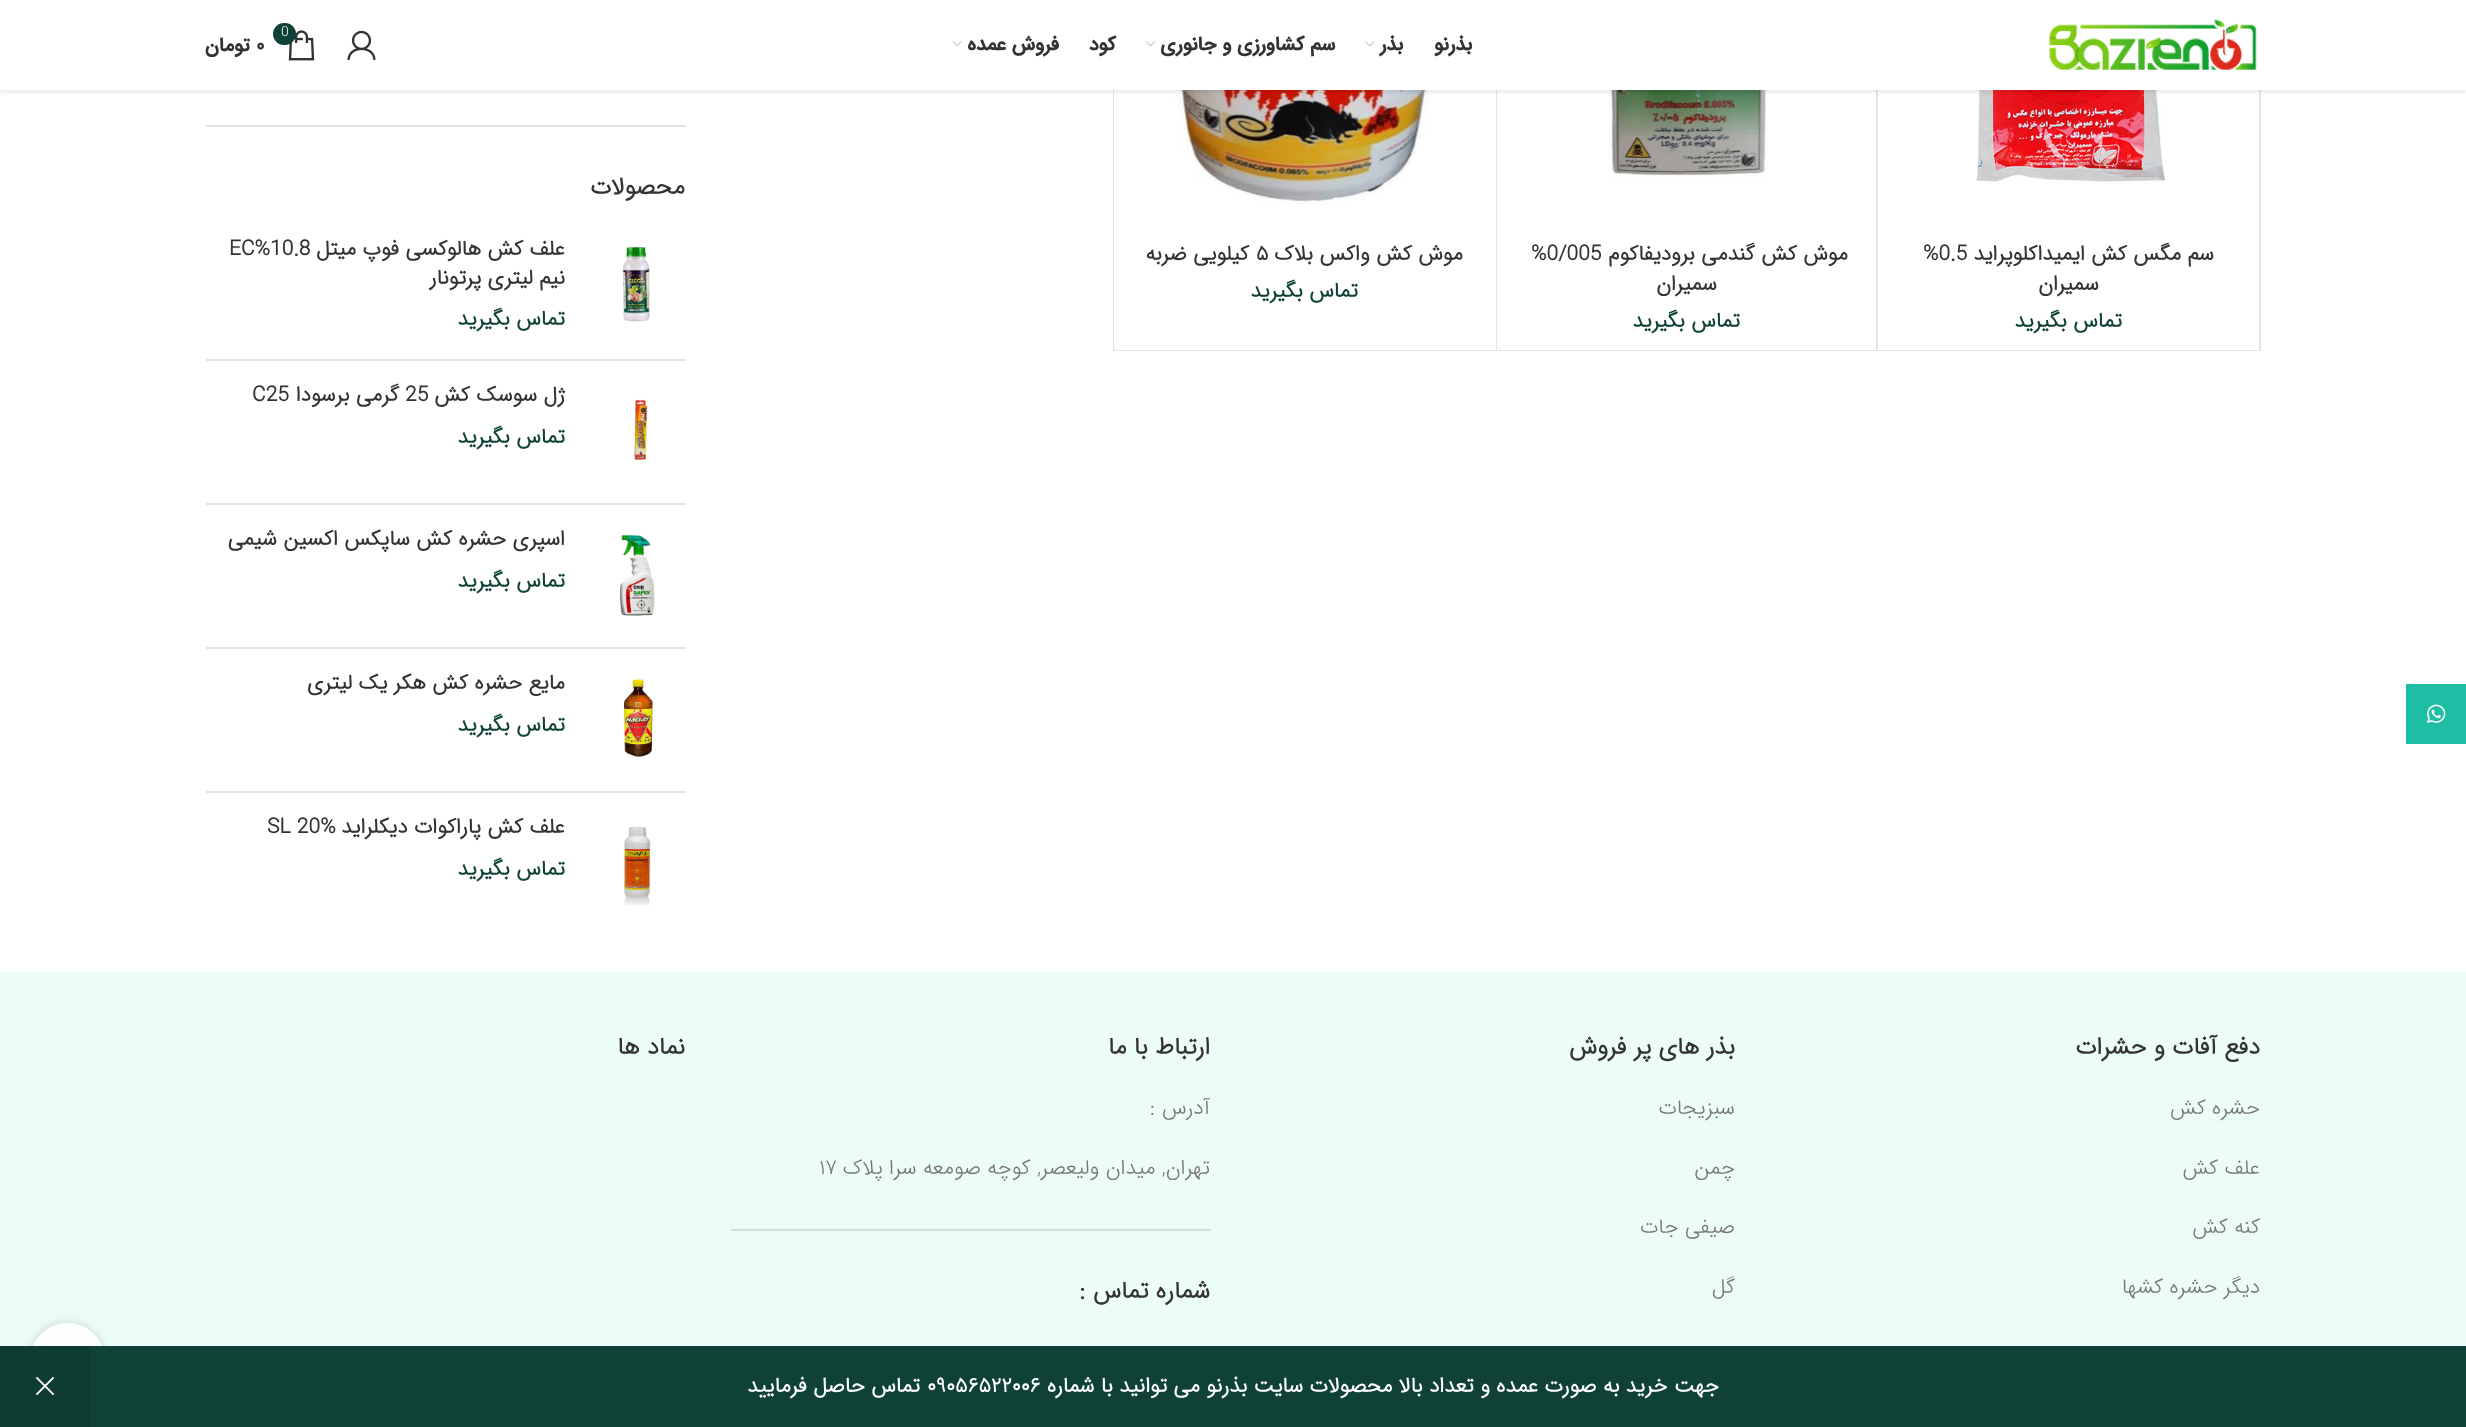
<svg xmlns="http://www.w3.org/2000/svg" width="2466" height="1427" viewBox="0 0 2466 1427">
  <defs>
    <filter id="blur1" x="-50%" y="-200%" width="200%" height="500%"><feGaussianBlur stdDeviation="2"/></filter>
    <clipPath id="clip1"><path d="M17 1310H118V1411H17ZM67.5 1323C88 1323 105 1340 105 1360.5C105 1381 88 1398 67.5 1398C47 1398 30 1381 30 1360.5C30 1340 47 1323 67.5 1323Z" clip-rule="evenodd"/></clipPath>
    <filter id="blur2" x="-50%" y="-200%" width="200%" height="500%"><feGaussianBlur stdDeviation="4"/></filter>
  </defs>
  <rect width="100%" height="100%" fill="#ffffff"/>
  <rect x="2406" y="684" width="60" height="60" fill="#1ebea5"/>
  <image x="2427" y="704" width="19" height="19" href="img1.png"/>
  <rect x="2259" y="90" width="2" height="261" fill="#e4e4e4"/>
  <path d="M2259 351H1876L1878 350H2259Z" fill="#e4e4e4"/>
  <path d="M1876 351V-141L1878-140V350Z" fill="#000000" fill-opacity="0.11"/>
  <image x="1976" y="90" width="190" height="94" href="img7.png"/>
  <path d="M1876 351H1496L1497 350H1876Z" fill="#e4e4e4"/>
  <path d="M1496 351V-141L1497-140V350Z" fill="#000000" fill-opacity="0.11"/>
  <image x="1608" y="90" width="161" height="90" href="img8.png"/>
  <path d="M1496 351H1113L1114 350H1496Z" fill="#e4e4e4"/>
  <path d="M1113 351V-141L1114-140V350Z" fill="#000000" fill-opacity="0.11"/>
  <image x="1167" y="90" width="275" height="114" href="img9.png"/>
  <rect x="0" y="2" width="2466" height="90" fill="#000000" fill-opacity="0.1" filter="url(#blur1)"/>
  <rect x="0" y="0" width="2466" height="90" fill="#ffffff"/>
  <image x="2049" y="19" width="208" height="51" href="img2.png"/>
  <text x="1472" y="50" font-family="'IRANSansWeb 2'" font-size="19.5" font-weight="bold" direction="rtl" fill="#333333">بذرنو</text>
  <text x="1403" y="50" font-family="'IRANSansWeb 2'" font-size="19.5" font-weight="bold" direction="rtl" fill="#333333">بذر</text>
  <image x="1365" y="41" width="9" height="6" href="img3.png"/>
  <text x="1335" y="50" font-family="'IRANSansWeb 2'" font-size="19.5" font-weight="bold" direction="rtl" fill="#333333">سم کشاورزی و جانوری</text>
  <image x="1146" y="41" width="9" height="6" href="img3.png"/>
  <text x="1116" y="50" font-family="'IRANSansWeb 2'" font-size="19.5" font-weight="bold" direction="rtl" fill="#333333">کود</text>
  <text x="1059" y="50" font-family="'IRANSansWeb 2'" font-size="19.5" font-weight="bold" direction="rtl" fill="#333333">فروش عمده</text>
  <image x="952" y="41" width="10" height="6" href="img4.png"/>
  <image x="347" y="30" width="29" height="30" href="img5.png"/>
  <image x="288" y="30" width="27" height="31" href="img6.png"/>
  <rect x="273" y="23" width="23" height="22" rx="11" fill="#0f4137"/>
  <text x="281" y="36" font-family="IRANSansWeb" font-size="14" font-weight="300" fill="#ffffff">0</text>
  <text x="256" y="51" font-family="'IRANSansWeb 2'" font-size="19.5" font-weight="bold" fill="#333333">۰</text>
  <text x="250" y="51" font-family="'IRANSansWeb 2'" font-size="19.5" font-weight="bold" direction="rtl" fill="#333333">تومان</text>
  <text x="2214" y="260" font-family="IRANSansWeb" font-size="21" font-weight="bold" direction="rtl" fill="#333333">سم مگس کش ایمیداکلوپراید</text>
  <text x="1923" y="260" font-family="IRANSansWeb" font-size="21" font-weight="bold" fill="#333333">%0.5</text>
  <text x="2099" y="290" font-family="IRANSansWeb" font-size="21" font-weight="bold" direction="rtl" fill="#333333">سمیران</text>
  <text x="2122" y="327" font-family="IRANSansWeb" font-size="21" font-weight="bold" direction="rtl" fill="#0f4137">تماس بگیرید</text>
  <text x="1848" y="260" font-family="IRANSansWeb" font-size="21" font-weight="bold" direction="rtl" fill="#333333">موش کش گندمی بروديفاكوم</text>
  <text x="1531" y="260" font-family="IRANSansWeb" font-size="21" font-weight="bold" fill="#333333">%0/005</text>
  <text x="1717" y="290" font-family="IRANSansWeb" font-size="21" font-weight="bold" direction="rtl" fill="#333333">سمیران</text>
  <text x="1740" y="327" font-family="IRANSansWeb" font-size="21" font-weight="bold" direction="rtl" fill="#0f4137">تماس بگیرید</text>
  <text x="1463" y="260" font-family="IRANSansWeb" font-size="21" font-weight="bold" direction="rtl" fill="#333333">موش کش واکس بلاک</text>
  <text x="1256" y="260" font-family="IRANSansWeb" font-size="21" font-weight="bold" fill="#333333">۵</text>
  <text x="1249" y="260" font-family="IRANSansWeb" font-size="21" font-weight="bold" direction="rtl" fill="#333333">کیلویی ضربه</text>
  <text x="1358" y="297" font-family="IRANSansWeb" font-size="21" font-weight="bold" direction="rtl" fill="#0f4137">تماس بگیرید</text>
  <rect x="206" y="125" width="480" height="2" fill="#e4e4e4"/>
  <text x="685" y="194" font-family="IRANSansWeb" font-size="24" font-weight="bold" direction="rtl" fill="#333333">محصولات</text>
  <rect x="206" y="359" width="480" height="2" fill="#e4e4e4"/>
  <image x="622" y="245" width="28" height="77" href="img10.png"/>
  <text x="565" y="255" font-family="IRANSansWeb" font-size="21" font-weight="bold" direction="rtl" fill="#333333">علف کش هالوکسی فوپ میتل</text>
  <text x="229" y="255" font-family="IRANSansWeb" font-size="21" font-weight="bold" fill="#333333">EC%10.8</text>
  <text x="565" y="284" font-family="IRANSansWeb" font-size="21" font-weight="bold" direction="rtl" fill="#333333">نیم لیتری پرتونار</text>
  <text x="565" y="325" font-family="IRANSansWeb" font-size="21" font-weight="bold" direction="rtl" fill="#0f4137">تماس بگیرید</text>
  <rect x="206" y="503" width="480" height="2" fill="#e4e4e4"/>
  <image x="634" y="399" width="14" height="61" href="img11.png"/>
  <text x="565" y="401" font-family="IRANSansWeb" font-size="21" font-weight="bold" direction="rtl" fill="#333333">ژل سوسک کش</text>
  <text x="405" y="401" font-family="IRANSansWeb" font-size="21" font-weight="bold" fill="#333333">25</text>
  <text x="399" y="401" font-family="IRANSansWeb" font-size="21" font-weight="bold" direction="rtl" fill="#333333">گرمی برسودا</text>
  <text x="252" y="401" font-family="IRANSansWeb" font-size="21" font-weight="bold" fill="#333333">C25</text>
  <text x="565" y="443" font-family="IRANSansWeb" font-size="21" font-weight="bold" direction="rtl" fill="#0f4137">تماس بگیرید</text>
  <rect x="206" y="647" width="480" height="2" fill="#e4e4e4"/>
  <image x="619" y="534" width="36" height="82" href="img12.png"/>
  <text x="565" y="545" font-family="IRANSansWeb" font-size="21" font-weight="bold" direction="rtl" fill="#333333">اسپری حشره کش ساپکس اکسین شیمی</text>
  <text x="565" y="587" font-family="IRANSansWeb" font-size="21" font-weight="bold" direction="rtl" fill="#0f4137">تماس بگیرید</text>
  <rect x="206" y="791" width="480" height="2" fill="#e4e4e4"/>
  <image x="623" y="679" width="30" height="78" href="img13.png"/>
  <text x="565" y="689" font-family="IRANSansWeb" font-size="21" font-weight="bold" direction="rtl" fill="#333333">مایع حشره کش هکر یک لیتری</text>
  <text x="565" y="731" font-family="IRANSansWeb" font-size="21" font-weight="bold" direction="rtl" fill="#0f4137">تماس بگیرید</text>
  <image x="624" y="827" width="27" height="79" href="img14.png"/>
  <text x="565" y="833" font-family="IRANSansWeb" font-size="21" font-weight="bold" direction="rtl" fill="#333333">علف کش پاراکوات دیکلراید</text>
  <text x="267" y="833" font-family="IRANSansWeb" font-size="21" font-weight="bold" fill="#333333">SL 20%</text>
  <text x="565" y="875" font-family="IRANSansWeb" font-size="21" font-weight="bold" direction="rtl" fill="#0f4137">تماس بگیرید</text>
  <rect x="0" y="972" width="2466" height="374" fill="#ecfdf6"/>
  <text x="2260" y="1054" font-family="IRANSansWeb" font-size="24" font-weight="bold" direction="rtl" fill="#333333">دفع آفات و حشرات</text>
  <text x="2260" y="1114" font-family="IRANSansWeb" font-size="21" font-weight="300" direction="rtl" fill="#777777">حشره کش</text>
  <text x="2260" y="1174" font-family="IRANSansWeb" font-size="21" font-weight="300" direction="rtl" fill="#777777">علف کش</text>
  <text x="2260" y="1233" font-family="IRANSansWeb" font-size="21" font-weight="300" direction="rtl" fill="#777777">کنه کش</text>
  <text x="2260" y="1293" font-family="IRANSansWeb" font-size="21" font-weight="300" direction="rtl" fill="#777777">دیگر حشره کشها</text>
  <text x="1735" y="1054" font-family="IRANSansWeb" font-size="24" font-weight="bold" direction="rtl" fill="#333333">بذر های پر فروش</text>
  <text x="1735" y="1114" font-family="IRANSansWeb" font-size="21" font-weight="300" direction="rtl" fill="#777777">سبزیجات</text>
  <text x="1735" y="1174" font-family="IRANSansWeb" font-size="21" font-weight="300" direction="rtl" fill="#777777">چمن</text>
  <text x="1735" y="1233" font-family="IRANSansWeb" font-size="21" font-weight="300" direction="rtl" fill="#777777">صیفی جات</text>
  <text x="1735" y="1293" font-family="IRANSansWeb" font-size="21" font-weight="300" direction="rtl" fill="#777777">گل</text>
  <rect x="731" y="1229" width="480" height="2" fill="#d3e2dc"/>
  <text x="1210" y="1054" font-family="IRANSansWeb" font-size="24" font-weight="bold" direction="rtl" fill="#333333">ارتباط با ما</text>
  <text x="1210" y="1114" font-family="IRANSansWeb" font-size="21" font-weight="300" direction="rtl" fill="#777777">آدرس :</text>
  <text x="1210" y="1174" font-family="IRANSansWeb" font-size="21" font-weight="300" direction="rtl" fill="#777777">تهران, میدان ولیعصر, کوچه صومعه سرا پلاک</text>
  <text x="819" y="1174" font-family="IRANSansWeb" font-size="21" font-weight="300" fill="#777777">۱۷</text>
  <text x="1210" y="1298" font-family="IRANSansWeb" font-size="24" font-weight="bold" direction="rtl" fill="#333333">شماره تماس :</text>
  <text x="685" y="1054" font-family="IRANSansWeb" font-size="24" font-weight="bold" direction="rtl" fill="#333333">نماد ها</text>
  <g clip-path="url(#clip1)">
    <rect x="30" y="1323" width="75" height="75" rx="37.5" fill="#000000" fill-opacity="0.17" filter="url(#blur2)"/>
  </g>
  <circle cx="67.5" cy="1360.5" r="37.5" fill="#ffffff" fill-opacity="0.9"/>
  <rect x="90" y="1346" width="2376" height="81" fill="#0f4137"/>
  <text x="1719" y="1392" font-family="IRANSansWeb" font-size="21" font-weight="bold" direction="rtl" fill="#ffffff">جهت خرید به صورت عمده و تعداد بالا محصولات سایت بذرنو می توانید با شماره</text>
  <text x="927" y="1392" font-family="IRANSansWeb" font-size="21" font-weight="bold" fill="#ffffff">۰۹۰۵۶۵۲۲۰۰۶</text>
  <text x="920" y="1392" font-family="IRANSansWeb" font-size="21" font-weight="bold" direction="rtl" fill="#ffffff">تماس حاصل فرمایید</text>
  <rect x="0" y="1346" width="90" height="81" fill="#0e3b32"/>
  <image x="35" y="1376" width="20" height="20" href="img15.png"/>
</svg>
